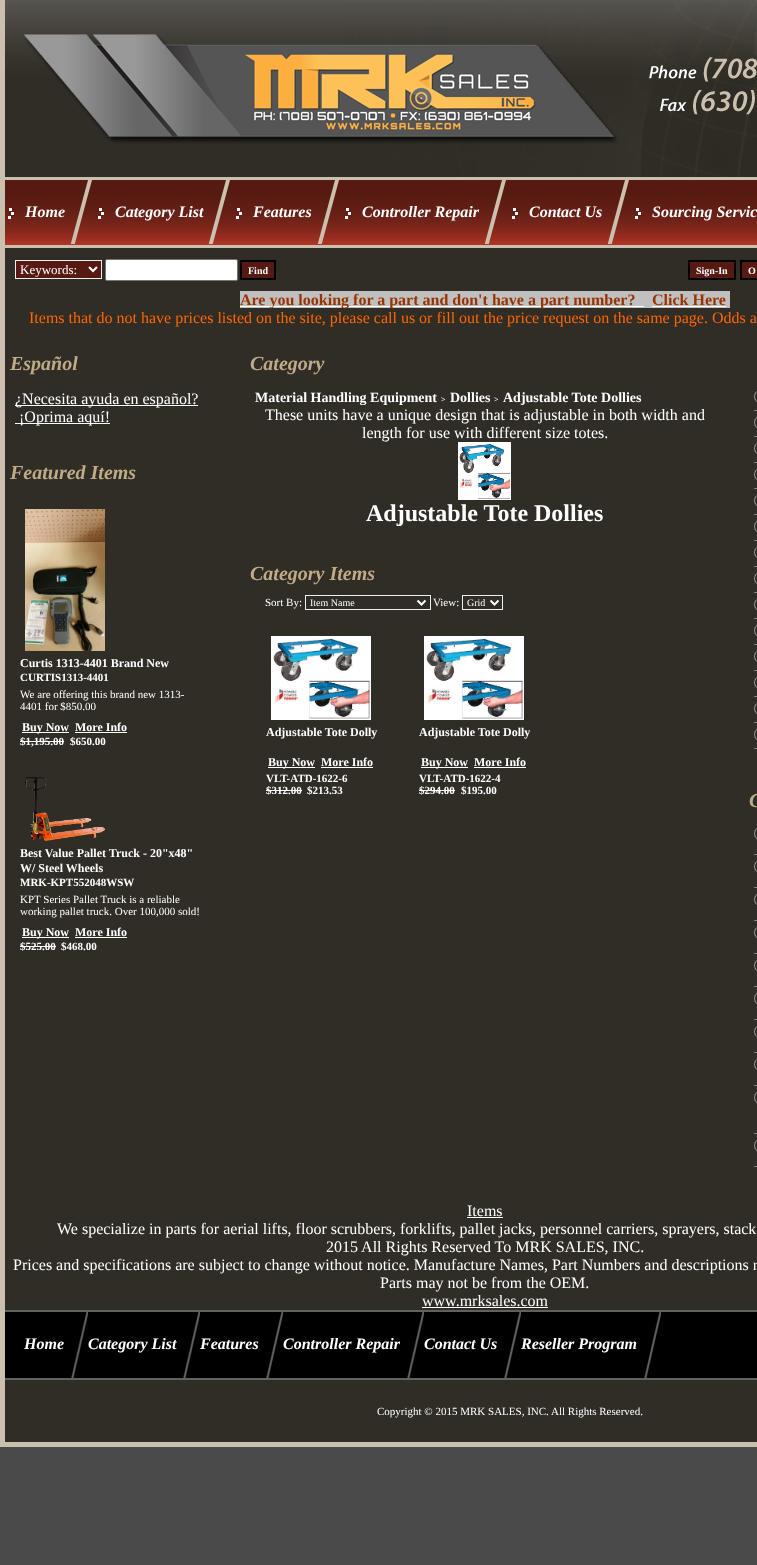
<svg xmlns="http://www.w3.org/2000/svg" width="757" height="1565" viewBox="0 0 757 1565">
  <rect width="100%" height="100%" fill="#4a4a4a"/>
  <rect x="5" y="248" width="752" height="1194" fill="#302d26"/>
  <rect x="0" y="1442" width="757" height="5" fill="#cbc0ae"/>
  <rect x="0" y="0" width="5" height="1447" fill="#cbc0ae"/>
  <image x="5" y="0" width="752" height="177" href="img1.png"/>
  <image x="5" y="180" width="752" height="65" href="img2.png"/>
  <rect x="5" y="177" width="752" height="3" fill="#cbc0ae"/>
  <rect x="5" y="245" width="752" height="3" fill="#cbc0ae"/>
  <image x="8" y="208" width="6" height="11" href="img3.png"/>
  <text x="25" y="217" font-family="Liberation Serif" font-size="16" font-weight="bold" font-style="italic" fill="#ffffff">Home</text>
  <image x="70" y="180" width="22" height="64" href="img4.png"/>
  <image x="98" y="208" width="6" height="11" href="img3.png"/>
  <text x="115" y="217" font-family="Liberation Serif" font-size="16" font-weight="bold" font-style="italic" fill="#ffffff">Category List</text>
  <image x="208" y="180" width="22" height="64" href="img4.png"/>
  <image x="236" y="208" width="6" height="11" href="img3.png"/>
  <text x="253" y="217" font-family="Liberation Serif" font-size="16" font-weight="bold" font-style="italic" fill="#ffffff">Features</text>
  <image x="317" y="180" width="22" height="64" href="img4.png"/>
  <image x="345" y="208" width="6" height="11" href="img3.png"/>
  <text x="362" y="217" font-family="Liberation Serif" font-size="16" font-weight="bold" font-style="italic" fill="#ffffff">Controller Repair</text>
  <image x="484" y="180" width="22" height="64" href="img4.png"/>
  <image x="512" y="208" width="6" height="11" href="img3.png"/>
  <text x="529" y="217" font-family="Liberation Serif" font-size="16" font-weight="bold" font-style="italic" fill="#ffffff">Contact Us</text>
  <image x="607" y="180" width="22" height="64" href="img4.png"/>
  <image x="635" y="208" width="6" height="11" href="img3.png"/>
  <text x="652" y="217" font-family="Liberation Serif" font-size="16" font-weight="bold" font-style="italic" fill="#ffffff">Sourcing Servic</text>
  <rect x="15.5" y="260.5" width="86" height="18" fill="#561a12" stroke="#eeeeee"/>
  <path d="M89 267L93 271L97 267" fill="none" stroke="#ffffff" stroke-width="2"/>
  <text x="20" y="274" font-family="Liberation Serif" font-size="13" fill="#ffffff">Keywords:</text>
  <rect x="105.5" y="259.5" width="132" height="21" rx="1.5" fill="#ffffff" stroke="#767676"/>
  <rect x="241" y="261" width="34" height="18" fill="#561a12" stroke="#000000" stroke-width="2"/>
  <text x="248" y="274" font-family="Liberation Serif" font-size="10" font-weight="bold" fill="#ffffff">Find</text>
  <rect x="689" y="261" width="46" height="18" fill="#561a12" stroke="#000000" stroke-width="2"/>
  <text x="696" y="274" font-family="Liberation Serif" font-size="10" font-weight="bold" fill="#ffffff">Sign-In</text>
  <rect x="741" y="261" width="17" height="18" fill="#561a12" stroke="#000000" stroke-width="2"/>
  <text x="748" y="274" font-family="Liberation Serif" font-size="10" font-weight="bold" fill="#ffffff">O</text>
  <rect x="240" y="291" width="490" height="17" fill="#c0c0c0"/>
  <rect x="240" y="306" width="404" height="1" fill="#ffffff"/>
  <text x="240" y="305" font-family="Liberation Serif" font-size="16" font-weight="bold" fill="#993300">Are you looking for a part and don't have a part number?</text>
  <text x="652" y="305" font-family="Liberation Serif" font-size="16" font-weight="bold" fill="#993300">Click Here</text>
  <rect x="652" y="306" width="74" height="1" fill="#ffffff"/>
  <text x="29" y="323" font-family="Liberation Serif" font-size="16" fill="#ff6600">Items that do not have prices listed on the site, please call us or fill out the price request on the same page. Odds a</text>
  <text x="10" y="370" font-family="Liberation Serif" font-size="20" font-weight="bold" font-style="italic" fill="#c0ab88">Español</text>
  <rect x="15" y="405" width="183" height="1" fill="#ffffff"/>
  <text x="15" y="404" font-family="Liberation Serif" font-size="16" fill="#ffffff">¿Necesita ayuda en español?</text>
  <rect x="15" y="423" width="95" height="1" fill="#ffffff"/>
  <text x="19" y="422" font-family="Liberation Serif" font-size="16" fill="#ffffff">¡Oprima aquí!</text>
  <text x="10" y="479" font-family="Liberation Serif" font-size="20" font-weight="bold" font-style="italic" fill="#c0ab88">Featured Items</text>
  <image x="25" y="509" width="80" height="142" href="img5.png"/>
  <text x="20" y="667" font-family="Liberation Serif" font-size="12" font-weight="bold" fill="#ffffff">Curtis 1313-4401 Brand New</text>
  <text x="20" y="681" font-family="Liberation Serif" font-size="11" font-weight="bold" fill="#ffffff">CURTIS1313-4401</text>
  <text x="20" y="698" font-family="Liberation Serif" font-size="11" fill="#ffffff">We are offering this brand new 1313-</text>
  <text x="20" y="710" font-family="Liberation Serif" font-size="11" fill="#ffffff">4401 for $850.00</text>
  <rect x="22" y="732" width="47" height="1" fill="#ffffff"/>
  <text x="22" y="731" font-family="Liberation Serif" font-size="12" font-weight="bold" fill="#ffffff">Buy Now</text>
  <text x="75" y="731" font-family="Liberation Serif" font-size="12" font-weight="bold" fill="#ffffff">More Info</text>
  <rect x="75" y="732" width="52" height="1" fill="#ffffff"/>
  <text x="20" y="745" font-family="Liberation Serif" font-size="11" font-weight="bold" fill="#ffffff">$1,195.00</text>
  <rect x="20" y="741" width="44" height="1" fill="#ffffff"/>
  <text x="70" y="745" font-family="Liberation Serif" font-size="11" font-weight="bold" fill="#ffffff">$650.00</text>
  <image x="25" y="777" width="80" height="64" href="img6.png"/>
  <text x="20" y="857" font-family="Liberation Serif" font-size="12" font-weight="bold" fill="#ffffff">Best Value Pallet Truck - 20"x48"</text>
  <text x="20" y="872" font-family="Liberation Serif" font-size="12" font-weight="bold" fill="#ffffff">W/ Steel Wheels</text>
  <text x="20" y="886" font-family="Liberation Serif" font-size="11" font-weight="bold" fill="#ffffff">MRK-KPT552048WSW</text>
  <text x="20" y="903" font-family="Liberation Serif" font-size="11" fill="#ffffff">KPT Series Pallet Truck is a reliable</text>
  <text x="20" y="915" font-family="Liberation Serif" font-size="11" fill="#ffffff">working pallet truck. Over 100,000 sold!</text>
  <rect x="22" y="937" width="47" height="1" fill="#ffffff"/>
  <text x="22" y="936" font-family="Liberation Serif" font-size="12" font-weight="bold" fill="#ffffff">Buy Now</text>
  <text x="75" y="936" font-family="Liberation Serif" font-size="12" font-weight="bold" fill="#ffffff">More Info</text>
  <rect x="75" y="937" width="52" height="1" fill="#ffffff"/>
  <text x="20" y="950" font-family="Liberation Serif" font-size="11" font-weight="bold" fill="#ffffff">$525.00</text>
  <rect x="20" y="946" width="36" height="1" fill="#ffffff"/>
  <text x="61" y="950" font-family="Liberation Serif" font-size="11" font-weight="bold" fill="#ffffff">$468.00</text>
  <text x="250" y="370" font-family="Liberation Serif" font-size="20" font-weight="bold" font-style="italic" fill="#c0ab88">Category</text>
  <text x="255" y="402" font-family="Liberation Serif" font-size="14" font-weight="bold" fill="#ffffff">Material Handling Equipment</text>
  <text x="441" y="402" font-family="Liberation Serif" font-size="8" font-weight="bold" fill="#ffffff">&gt;</text>
  <text x="450" y="402" font-family="Liberation Serif" font-size="14" font-weight="bold" fill="#ffffff">Dollies</text>
  <text x="494" y="402" font-family="Liberation Serif" font-size="8" font-weight="bold" fill="#ffffff">&gt;</text>
  <text x="503" y="402" font-family="Liberation Serif" font-size="14" font-weight="bold" fill="#ffffff">Adjustable Tote Dollies</text>
  <text x="265" y="420" font-family="Liberation Serif" font-size="16" fill="#ffffff">These units have a unique design that is adjustable in both width and</text>
  <text x="362" y="438" font-family="Liberation Serif" font-size="16" fill="#ffffff">length for use with different size totes.</text>
  <image x="458" y="442" width="53" height="58" href="img7.png"/>
  <text x="366" y="521" font-family="Liberation Serif" font-size="24" font-weight="bold" fill="#ffffff">Adjustable Tote Dollies</text>
  <text x="250" y="580" font-family="Liberation Serif" font-size="20" font-weight="bold" font-style="italic" fill="#c0ab88">Category Items</text>
  <text x="265" y="606" font-family="Liberation Serif" font-size="11" fill="#ffffff">Sort By:</text>
  <rect x="305.5" y="595.5" width="125" height="14" fill="none" stroke="#eeeeee"/>
  <path d="M417.5 600.5L421.5 604.5L425.5 600.5" fill="none" stroke="#ffffff" stroke-width="2"/>
  <text x="310" y="606" font-family="Liberation Serif" font-size="10" fill="#ffffff">Item Name</text>
  <text x="433" y="606" font-family="Liberation Serif" font-size="11" fill="#ffffff">View:</text>
  <rect x="462.5" y="595.5" width="40" height="14" fill="none" stroke="#eeeeee"/>
  <path d="M490.5 600.5L494.5 604.5L498.5 600.5" fill="none" stroke="#ffffff" stroke-width="2"/>
  <text x="467" y="606" font-family="Liberation Serif" font-size="10" fill="#ffffff">Grid</text>
  <image x="271" y="636" width="100" height="84" href="img8.png"/>
  <text x="266" y="736" font-family="Liberation Serif" font-size="12" font-weight="bold" fill="#ffffff">Adjustable Tote Dolly</text>
  <rect x="268" y="767" width="47" height="1" fill="#ffffff"/>
  <text x="268" y="766" font-family="Liberation Serif" font-size="12" font-weight="bold" fill="#ffffff">Buy Now</text>
  <text x="321" y="766" font-family="Liberation Serif" font-size="12" font-weight="bold" fill="#ffffff">More Info</text>
  <rect x="321" y="767" width="52" height="1" fill="#ffffff"/>
  <text x="266" y="782" font-family="Liberation Serif" font-size="11" font-weight="bold" fill="#ffffff">VLT-ATD-1622-6</text>
  <text x="266" y="794" font-family="Liberation Serif" font-size="11" font-weight="bold" fill="#ffffff">$312.00</text>
  <rect x="266" y="790" width="36" height="1" fill="#ffffff"/>
  <text x="307" y="794" font-family="Liberation Serif" font-size="11" font-weight="bold" fill="#ffffff">$213.53</text>
  <image x="424" y="636" width="100" height="84" href="img9.png"/>
  <text x="419" y="736" font-family="Liberation Serif" font-size="12" font-weight="bold" fill="#ffffff">Adjustable Tote Dolly</text>
  <rect x="421" y="767" width="47" height="1" fill="#ffffff"/>
  <text x="421" y="766" font-family="Liberation Serif" font-size="12" font-weight="bold" fill="#ffffff">Buy Now</text>
  <text x="474" y="766" font-family="Liberation Serif" font-size="12" font-weight="bold" fill="#ffffff">More Info</text>
  <rect x="474" y="767" width="52" height="1" fill="#ffffff"/>
  <text x="419" y="782" font-family="Liberation Serif" font-size="11" font-weight="bold" fill="#ffffff">VLT-ATD-1622-4</text>
  <text x="419" y="794" font-family="Liberation Serif" font-size="11" font-weight="bold" fill="#ffffff">$294.00</text>
  <rect x="419" y="790" width="36" height="1" fill="#ffffff"/>
  <text x="461" y="794" font-family="Liberation Serif" font-size="11" font-weight="bold" fill="#ffffff">$195.00</text>
  <rect x="754" y="410" width="3" height="1" fill="#83817d"/>
  <image x="754" y="391" width="3" height="11" href="img10.png"/>
  <rect x="754" y="436" width="3" height="1" fill="#83817d"/>
  <image x="754" y="417" width="3" height="11" href="img10.png"/>
  <rect x="754" y="462" width="3" height="1" fill="#83817d"/>
  <image x="754" y="443" width="3" height="11" href="img10.png"/>
  <rect x="754" y="488" width="3" height="1" fill="#83817d"/>
  <image x="754" y="469" width="3" height="11" href="img10.png"/>
  <rect x="754" y="514" width="3" height="1" fill="#83817d"/>
  <image x="754" y="495" width="3" height="11" href="img10.png"/>
  <rect x="754" y="540" width="3" height="1" fill="#83817d"/>
  <image x="754" y="521" width="3" height="11" href="img10.png"/>
  <rect x="754" y="566" width="3" height="1" fill="#83817d"/>
  <image x="754" y="547" width="3" height="11" href="img10.png"/>
  <rect x="754" y="592" width="3" height="1" fill="#83817d"/>
  <image x="754" y="573" width="3" height="11" href="img10.png"/>
  <rect x="754" y="618" width="3" height="1" fill="#83817d"/>
  <image x="754" y="599" width="3" height="11" href="img10.png"/>
  <rect x="754" y="644" width="3" height="1" fill="#83817d"/>
  <image x="754" y="625" width="3" height="11" href="img10.png"/>
  <rect x="754" y="670" width="3" height="1" fill="#83817d"/>
  <image x="754" y="651" width="3" height="11" href="img10.png"/>
  <rect x="754" y="696" width="3" height="1" fill="#83817d"/>
  <image x="754" y="677" width="3" height="11" href="img10.png"/>
  <rect x="754" y="722" width="3" height="1" fill="#83817d"/>
  <image x="754" y="703" width="3" height="11" href="img10.png"/>
  <rect x="754" y="748" width="3" height="1" fill="#83817d"/>
  <image x="754" y="729" width="3" height="11" href="img10.png"/>
  <text x="749" y="807" font-family="Liberation Serif" font-size="20" font-weight="bold" font-style="italic" fill="#c0ab88">C</text>
  <rect x="754" y="854" width="3" height="1" fill="#83817d"/>
  <image x="754" y="828" width="3" height="11" href="img10.png"/>
  <rect x="754" y="887" width="3" height="1" fill="#83817d"/>
  <image x="754" y="861" width="3" height="11" href="img10.png"/>
  <rect x="754" y="920" width="3" height="1" fill="#83817d"/>
  <image x="754" y="894" width="3" height="11" href="img10.png"/>
  <rect x="754" y="953" width="3" height="1" fill="#83817d"/>
  <image x="754" y="927" width="3" height="11" href="img10.png"/>
  <rect x="754" y="986" width="3" height="1" fill="#83817d"/>
  <image x="754" y="960" width="3" height="11" href="img10.png"/>
  <rect x="754" y="1019" width="3" height="1" fill="#83817d"/>
  <image x="754" y="993" width="3" height="11" href="img10.png"/>
  <rect x="754" y="1052" width="3" height="1" fill="#83817d"/>
  <image x="754" y="1026" width="3" height="11" href="img10.png"/>
  <rect x="754" y="1085" width="3" height="1" fill="#83817d"/>
  <image x="754" y="1059" width="3" height="11" href="img10.png"/>
  <rect x="754" y="1133" width="3" height="1" fill="#83817d"/>
  <image x="754" y="1092" width="3" height="11" href="img10.png"/>
  <rect x="754" y="1166" width="3" height="1" fill="#83817d"/>
  <image x="754" y="1140" width="3" height="11" href="img10.png"/>
  <text x="467" y="1216" font-family="Liberation Serif" font-size="16" fill="#ffffff">Items</text>
  <rect x="467" y="1217" width="36" height="1" fill="#ffffff"/>
  <text x="57" y="1234" font-family="Liberation Serif" font-size="16" fill="#ffffff">We specialize in parts for aerial lifts, floor scrubbers, forklifts, pallet jacks, personnel carriers, sprayers, stack</text>
  <text x="326" y="1252" font-family="Liberation Serif" font-size="16" fill="#ffffff">2015 All Rights Reserved To MRK SALES, INC.</text>
  <text x="13" y="1270" font-family="Liberation Serif" font-size="16" fill="#ffffff">Prices and specifications are subject to change without notice. Manufacture Names, Part Numbers and descriptions n</text>
  <text x="380" y="1288" font-family="Liberation Serif" font-size="16" fill="#ffffff">Parts may not be from the OEM.</text>
  <text x="422" y="1306" font-family="Liberation Serif" font-size="16" fill="#ffffff">www.mrksales.com</text>
  <rect x="422" y="1307" width="126" height="1" fill="#ffffff"/>
  <rect x="5" y="1312" width="752" height="66" fill="#000000"/>
  <rect x="5" y="1310" width="752" height="2" fill="#61615e"/>
  <rect x="5" y="1378" width="752" height="2" fill="#61615e"/>
  <text x="24" y="1349" font-family="Liberation Serif" font-size="16" font-weight="bold" font-style="italic" fill="#ffffff">Home</text>
  <image x="71" y="1312" width="17" height="66" href="img11.png"/>
  <text x="88" y="1349" font-family="Liberation Serif" font-size="16" font-weight="bold" font-style="italic" fill="#ffffff">Category List</text>
  <image x="183" y="1312" width="17" height="66" href="img11.png"/>
  <text x="200" y="1349" font-family="Liberation Serif" font-size="16" font-weight="bold" font-style="italic" fill="#ffffff">Features</text>
  <image x="266" y="1312" width="17" height="66" href="img11.png"/>
  <text x="283" y="1349" font-family="Liberation Serif" font-size="16" font-weight="bold" font-style="italic" fill="#ffffff">Controller Repair</text>
  <image x="407" y="1312" width="17" height="66" href="img11.png"/>
  <text x="424" y="1349" font-family="Liberation Serif" font-size="16" font-weight="bold" font-style="italic" fill="#ffffff">Contact Us</text>
  <image x="504" y="1312" width="17" height="66" href="img11.png"/>
  <text x="521" y="1349" font-family="Liberation Serif" font-size="16" font-weight="bold" font-style="italic" fill="#ffffff">Reseller Program</text>
  <image x="644" y="1312" width="17" height="66" href="img11.png"/>
  <text x="377" y="1415" font-family="Liberation Serif" font-size="11" fill="#ffffff">Copyright © 2015 MRK SALES, INC. All Rights Reserved.</text>
</svg>
